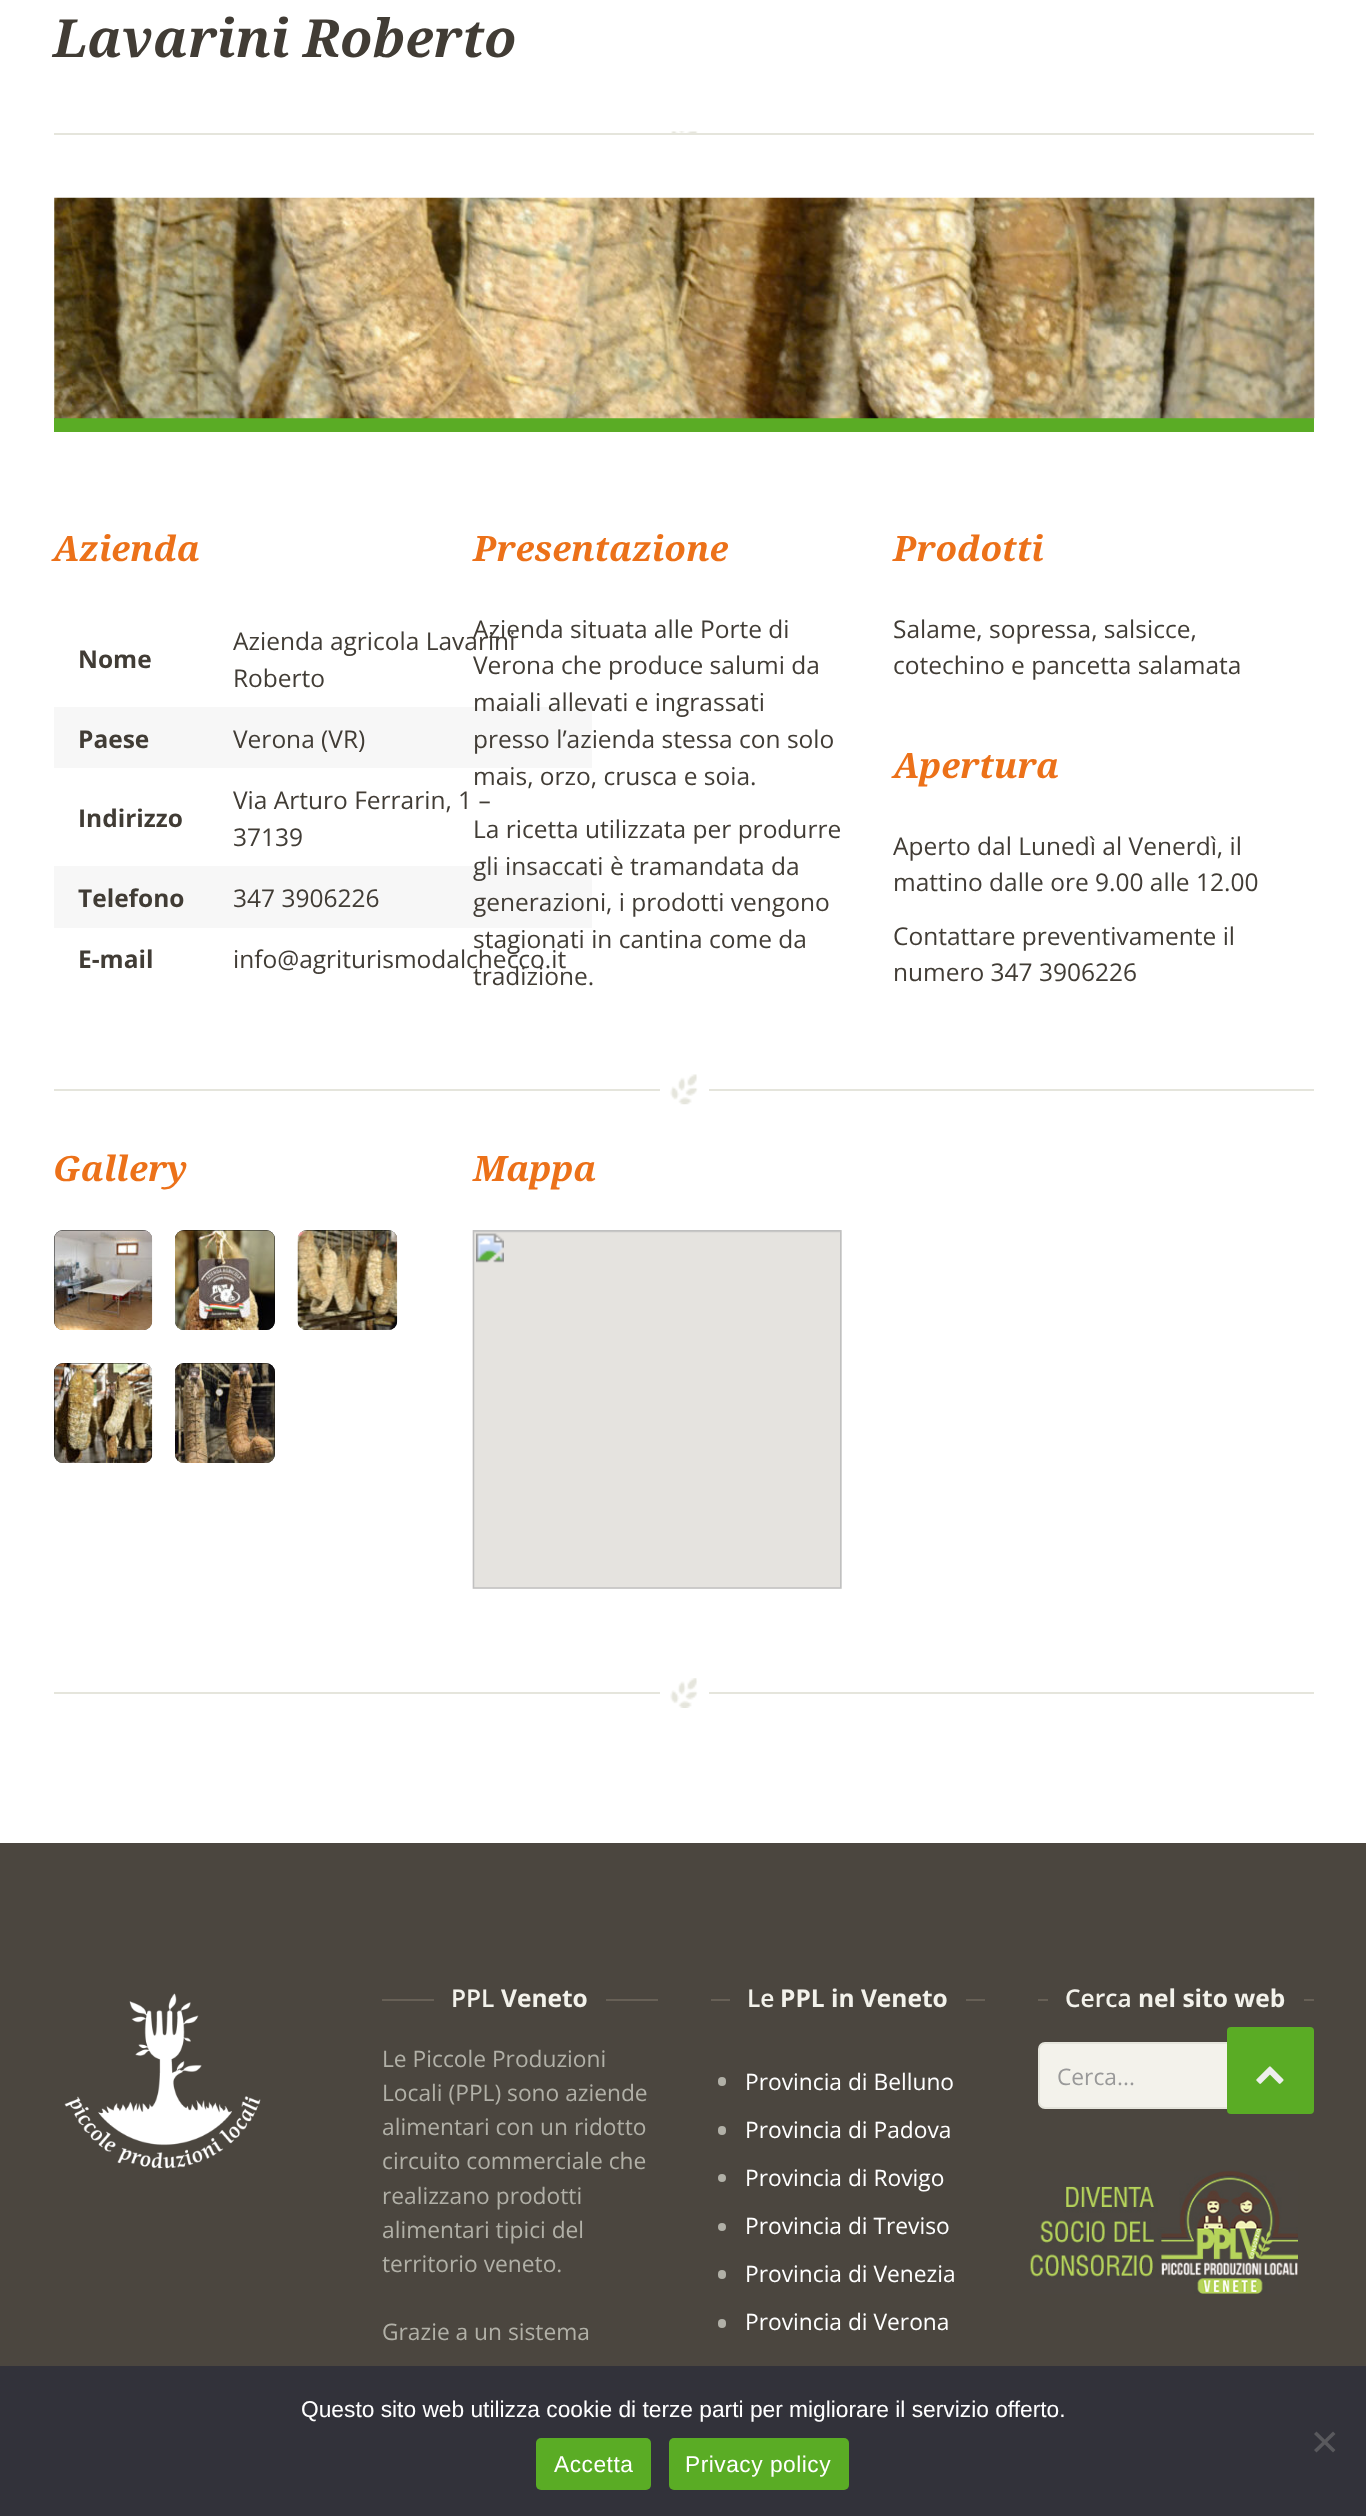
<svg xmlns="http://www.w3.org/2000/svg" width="1366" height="2516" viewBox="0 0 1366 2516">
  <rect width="100%" height="100%" fill="#ffffff"/>
  <text x="53" y="57" font-family="Droid Serif" font-size="52.5" font-weight="bold" font-style="italic" fill="#413c35">Lavarini Roberto</text>
  <rect x="54" y="133" width="1260" height="2" fill="#e5e5dc"/>
  <image x="671" y="131" width="27" height="2" href="img1.png"/>
  <rect x="54" y="418" width="1260" height="14" fill="#5aac25"/>
  <image x="54" y="197" width="1261" height="222" href="img2.png"/>
  <text x="53" y="561" font-family="Droid Serif" font-size="35" font-weight="bold" font-style="italic" fill="#ec7119">Azienda</text>
  <text x="78" y="668" font-family="Open Sans" font-size="24.5" font-weight="bold" fill="#413c35">Nome</text>
  <text x="233" y="650" font-family="Open Sans" font-size="24.5" fill="#413c35">Azienda agricola Lavarini</text>
  <text x="233" y="687" font-family="Open Sans" font-size="24.5" fill="#413c35">Roberto</text>
  <rect x="54" y="707" width="538" height="61" fill="#f7f7f7"/>
  <text x="78" y="748" font-family="Open Sans" font-size="24.5" font-weight="bold" fill="#413c35">Paese</text>
  <text x="233" y="748" font-family="Open Sans" font-size="24.5" fill="#413c35">Verona (VR)</text>
  <text x="78" y="827" font-family="Open Sans" font-size="24.5" font-weight="bold" fill="#413c35">Indirizzo</text>
  <text x="233" y="809" font-family="Open Sans" font-size="24.5" fill="#413c35">Via Arturo Ferrarin, 1 –</text>
  <text x="233" y="846" font-family="Open Sans" font-size="24.5" fill="#413c35">37139</text>
  <rect x="54" y="866" width="538" height="62" fill="#f7f7f7"/>
  <text x="78" y="907" font-family="Open Sans" font-size="24.5" font-weight="bold" fill="#413c35">Telefono</text>
  <text x="233" y="907" font-family="Open Sans" font-size="24.5" fill="#413c35">347 3906226</text>
  <text x="78" y="968" font-family="Open Sans" font-size="24.5" font-weight="bold" fill="#413c35">E-mail</text>
  <text x="233" y="968" font-family="Open Sans" font-size="24.5" fill="#413c35">info@agriturismodalchecco.it</text>
  <text x="473" y="561" font-family="Droid Serif" font-size="35" font-weight="bold" font-style="italic" fill="#ec7119">Presentazione</text>
  <text x="473" y="638" font-family="Open Sans" font-size="24.5" fill="#413c35">Azienda situata alle Porte di</text>
  <text x="473" y="674" font-family="Open Sans" font-size="24.5" fill="#413c35">Verona che produce salumi da</text>
  <text x="473" y="711" font-family="Open Sans" font-size="24.5" fill="#413c35">maiali allevati e ingrassati</text>
  <text x="473" y="748" font-family="Open Sans" font-size="24.5" fill="#413c35">presso l’azienda stessa con solo</text>
  <text x="473" y="785" font-family="Open Sans" font-size="24.5" fill="#413c35">mais, orzo, crusca e soia.</text>
  <text x="473" y="838" font-family="Open Sans" font-size="24.5" fill="#413c35">La ricetta utilizzata per produrre</text>
  <text x="473" y="875" font-family="Open Sans" font-size="24.5" fill="#413c35">gli insaccati è tramandata da</text>
  <text x="473" y="911" font-family="Open Sans" font-size="24.5" fill="#413c35">generazioni, i prodotti vengono</text>
  <text x="473" y="948" font-family="Open Sans" font-size="24.5" fill="#413c35">stagionati in cantina come da</text>
  <text x="473" y="985" font-family="Open Sans" font-size="24.5" fill="#413c35">tradizione.</text>
  <text x="893" y="561" font-family="Droid Serif" font-size="35" font-weight="bold" font-style="italic" fill="#ec7119">Prodotti</text>
  <text x="893" y="638" font-family="Open Sans" font-size="24.5" fill="#413c35">Salame, sopressa, salsicce,</text>
  <text x="893" y="674" font-family="Open Sans" font-size="24.5" fill="#413c35">cotechino e pancetta salamata</text>
  <text x="893" y="778" font-family="Droid Serif" font-size="35" font-weight="bold" font-style="italic" fill="#ec7119">Apertura</text>
  <text x="893" y="855" font-family="Open Sans" font-size="24.5" fill="#413c35">Aperto dal Lunedì al Venerdì, il</text>
  <text x="893" y="891" font-family="Open Sans" font-size="24.5" fill="#413c35">mattino dalle ore 9.00 alle 12.00</text>
  <text x="893" y="945" font-family="Open Sans" font-size="24.5" fill="#413c35">Contattare preventivamente il</text>
  <text x="893" y="981" font-family="Open Sans" font-size="24.5" fill="#413c35">numero 347 3906226</text>
  <rect x="54" y="1089" width="1260" height="2" fill="#e5e5dc"/>
  <rect x="660" y="1089" width="49" height="2" fill="#ffffff"/>
  <image x="670" y="1074" width="28" height="31" href="img3.png"/>
  <text x="53" y="1181" font-family="Droid Serif" font-size="35" font-weight="bold" font-style="italic" fill="#ec7119">Gallery</text>
  <rect x="54" y="1230" width="98" height="100" rx="9" fill="#000000"/>
  <image x="54" y="1230" width="99" height="100" href="img4.png"/>
  <rect x="175" y="1230" width="100" height="100" rx="9" fill="#000000"/>
  <image x="175" y="1230" width="100" height="100" href="img5.png"/>
  <rect x="298" y="1230" width="99" height="100" rx="9" fill="#000000"/>
  <image x="297" y="1230" width="101" height="100" href="img6.png"/>
  <rect x="54" y="1363" width="98" height="100" rx="9" fill="#000000"/>
  <image x="54" y="1363" width="99" height="100" href="img7.png"/>
  <rect x="175" y="1363" width="100" height="100" rx="9" fill="#000000"/>
  <image x="175" y="1363" width="100" height="100" href="img8.png"/>
  <text x="473" y="1181" font-family="Droid Serif" font-size="35" font-weight="bold" font-style="italic" fill="#ec7119">Mappa</text>
  <image x="472" y="1230" width="370" height="359" href="img9.png"/>
  <rect x="54" y="1692" width="1260" height="2" fill="#e5e5dc"/>
  <rect x="660" y="1692" width="49" height="2" fill="#ffffff"/>
  <image x="670" y="1678" width="28" height="30" href="img10.png"/>
  <rect x="0" y="1843" width="1366" height="523" fill="#4b463f"/>
  <image x="64" y="1993" width="197" height="176" href="img11.png"/>
  <rect x="382" y="1999" width="276" height="2" fill="#676056"/>
  <rect x="434" y="1999" width="172" height="2" fill="#4b463f"/>
  <text x="451" y="2007" font-family="Open Sans" font-size="24.5" font-weight="600" fill="#f3f2eb">PPL</text>
  <text x="501" y="2007" font-family="Open Sans" font-size="24.5" font-weight="bold" fill="#f3f2eb">Veneto</text>
  <text x="382" y="2067" font-family="Open Sans" font-size="22.75" fill="#b1b0a7">Le Piccole Produzioni</text>
  <text x="382" y="2101" font-family="Open Sans" font-size="22.75" fill="#b1b0a7">Locali (PPL) sono aziende</text>
  <text x="382" y="2135" font-family="Open Sans" font-size="22.75" fill="#b1b0a7">alimentari con un ridotto</text>
  <text x="382" y="2169" font-family="Open Sans" font-size="22.75" fill="#b1b0a7">circuito commerciale che</text>
  <text x="382" y="2204" font-family="Open Sans" font-size="22.75" fill="#b1b0a7">realizzano prodotti</text>
  <text x="382" y="2238" font-family="Open Sans" font-size="22.75" fill="#b1b0a7">alimentari tipici del</text>
  <text x="382" y="2272" font-family="Open Sans" font-size="22.75" fill="#b1b0a7">territorio veneto.</text>
  <text x="382" y="2340" font-family="Open Sans" font-size="22.75" fill="#b1b0a7">Grazie a un sistema</text>
  <rect x="711" y="1999" width="274" height="2" fill="#676056"/>
  <rect x="730" y="1999" width="236" height="2" fill="#4b463f"/>
  <text x="747" y="2007" font-family="Open Sans" font-size="24.5" font-weight="600" fill="#f3f2eb">Le</text>
  <text x="780" y="2007" font-family="Open Sans" font-size="24.5" font-weight="bold" fill="#f3f2eb">PPL in Veneto</text>
  <rect x="718" y="2077" width="8" height="9" rx="4" fill="#b1b0a7"/>
  <text x="745" y="2090" font-family="Open Sans" font-size="22.75" fill="#ffffff">Provincia di Belluno</text>
  <rect x="718" y="2126" width="8" height="9" rx="4" fill="#b1b0a7"/>
  <text x="745" y="2138" font-family="Open Sans" font-size="22.75" fill="#ffffff">Provincia di Padova</text>
  <circle cx="722" cy="2178" r="4" fill="#b1b0a7"/>
  <text x="745" y="2186" font-family="Open Sans" font-size="22.75" fill="#ffffff">Provincia di Rovigo</text>
  <circle cx="722" cy="2227" r="4" fill="#b1b0a7"/>
  <text x="745" y="2234" font-family="Open Sans" font-size="22.75" fill="#ffffff">Provincia di Treviso</text>
  <rect x="718" y="2270" width="8" height="9" rx="4" fill="#b1b0a7"/>
  <text x="745" y="2282" font-family="Open Sans" font-size="22.75" fill="#ffffff">Provincia di Venezia</text>
  <rect x="718" y="2319" width="8" height="9" rx="4" fill="#b1b0a7"/>
  <text x="745" y="2330" font-family="Open Sans" font-size="22.75" fill="#ffffff">Provincia di Verona</text>
  <rect x="1038" y="1999" width="276" height="2" fill="#676056"/>
  <rect x="1048" y="1999" width="256" height="2" fill="#4b463f"/>
  <text x="1065" y="2007" font-family="Open Sans" font-size="24.5" font-weight="600" fill="#f3f2eb">Cerca</text>
  <text x="1138" y="2007" font-family="Open Sans" font-size="24.5" font-weight="bold" fill="#f3f2eb">nel sito web</text>
  <rect x="1039" y="2043" width="218" height="65" rx="6" fill="#f3f2eb" stroke="#e5e5dc" stroke-width="2"/>
  <text x="1057" y="2085" font-family="Open Sans" font-size="22.75" fill="#999999">Cerca...</text>
  <image x="1030" y="2171" width="268" height="123" href="img12.png"/>
  <rect x="1227" y="2027" width="87" height="87" rx="4" fill="#5aac25"/>
  <image x="1256" y="2066" width="28" height="18" href="img13.png"/>
  <rect x="0" y="2366" width="1366" height="150" fill="#32323a"/>
  <text x="301" y="2417" font-family="Liberation Sans" font-size="22.75" fill="#ffffff">Questo sito web utilizza cookie di terze parti per migliorare il servizio offerto.</text>
  <path d="M1333 2431.5L1335.5 2434L1316.5 2452.5L1314 2450Z" fill="#59595d"/>
  <path d="M1314 2434L1316.5 2431.5L1335.5 2450L1333 2452.5Z" fill="#59595d"/>
  <rect x="536" y="2438" width="115" height="52" rx="5" fill="#5aac25"/>
  <text x="554" y="2472" font-family="Liberation Sans" font-size="22.75" letter-spacing="0.5" fill="#ffffff">Accetta</text>
  <rect x="669" y="2438" width="180" height="52" rx="5" fill="#5aac25"/>
  <text x="685" y="2472" font-family="Liberation Sans" font-size="22.75" letter-spacing="0.5" fill="#ffffff">Privacy policy</text>
</svg>
